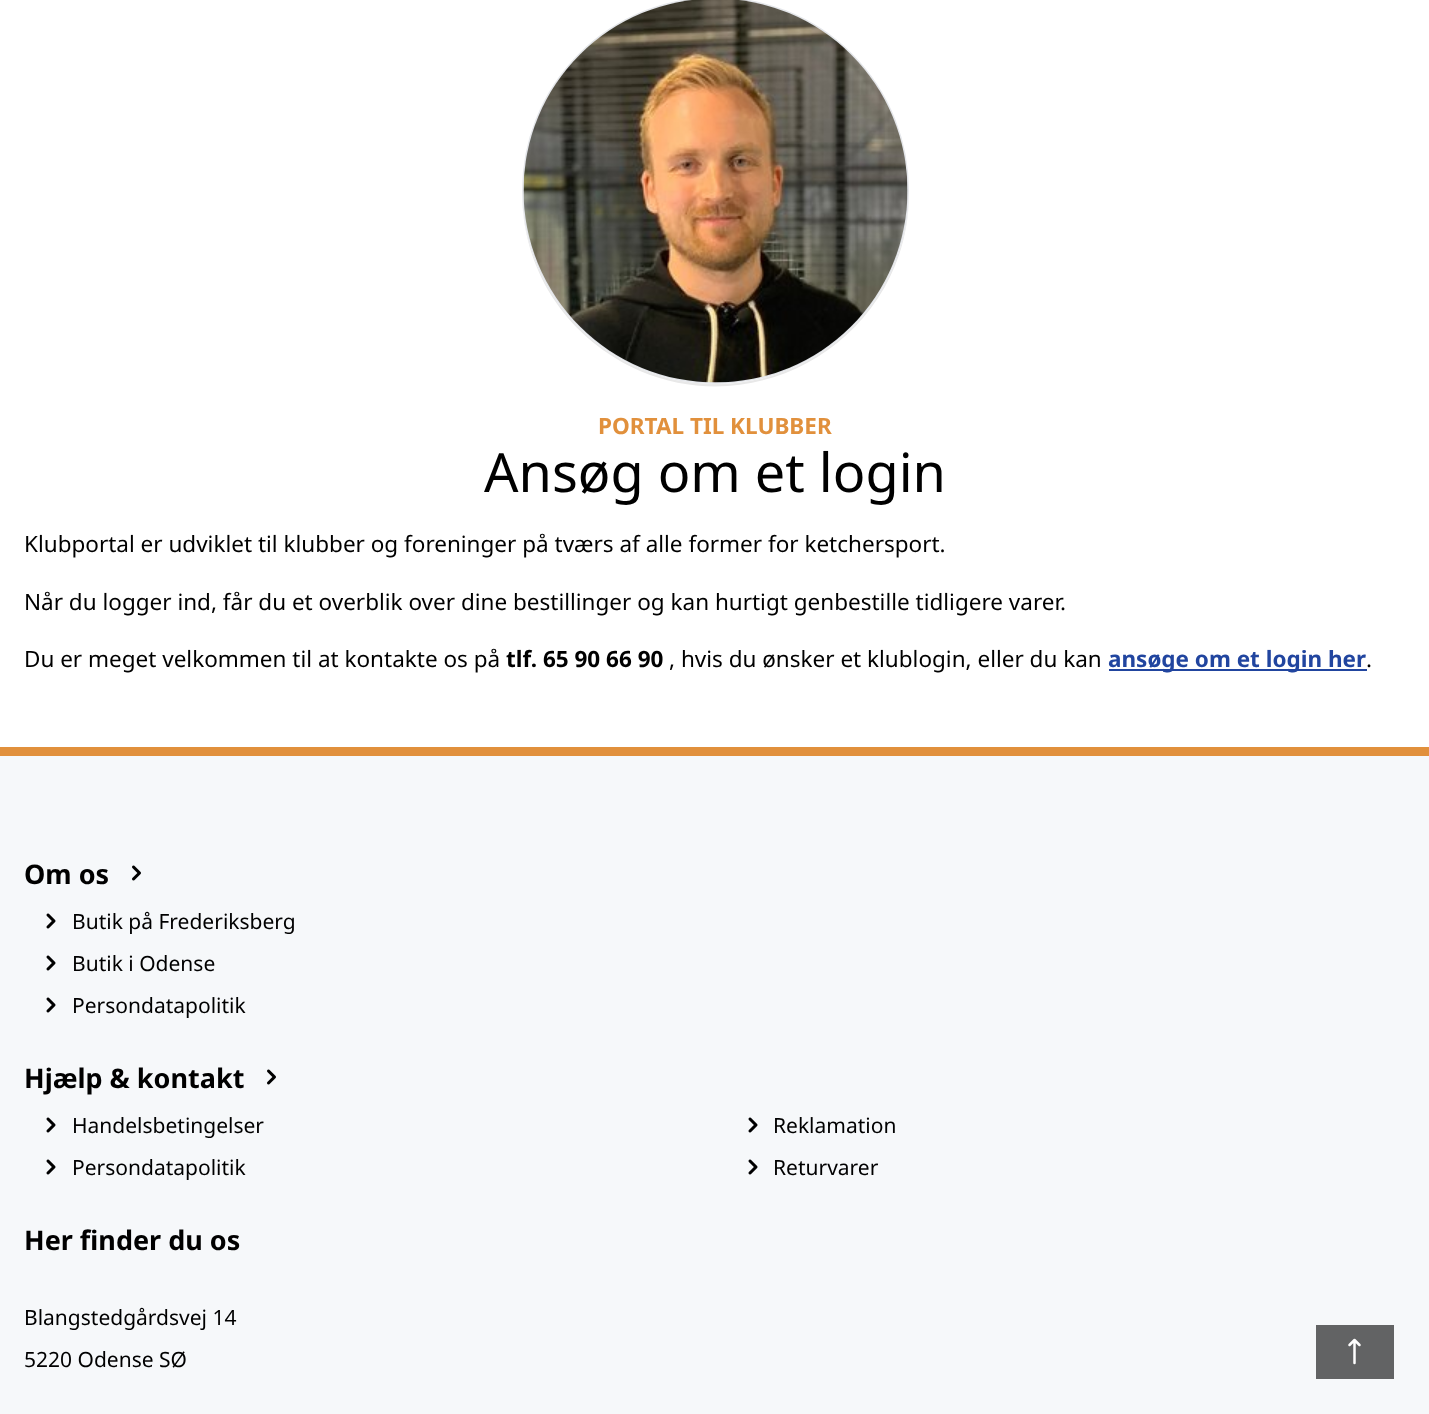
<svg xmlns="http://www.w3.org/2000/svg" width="1429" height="1414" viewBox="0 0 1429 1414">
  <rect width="100%" height="100%" fill="#ffffff"/>
  <path d="M909 192C908 298 822 384 716 384C609 384 523 298 522 192C522 230 533 269 555 301C576 332 606 356 640 371C768 425 910 330 909 192Z" fill="#e8e8e8"/>
  <circle cx="715.5" cy="190.5" r="192.5" fill="none" stroke="#e5e7eb" stroke-width="2"/>
  <image x="523" y="0" width="385" height="383" href="img1.png"/>
  <text x="598" y="434" font-family="Noto Sans" font-size="22.5" font-weight="bold" fill="#e1903c">PORTAL TIL KLUBBER</text>
  <text x="484" y="492" font-family="Noto Sans" font-size="54" fill="#000000">Ansøg om et login</text>
  <text x="24" y="552" font-family="Noto Sans" font-size="22.5" fill="#000000">Klubportal er udviklet til klubber og foreninger på tværs af alle former for ketchersport.</text>
  <text x="24" y="610" font-family="Noto Sans" font-size="22.5" fill="#000000">Når du logger ind, får du et overblik over dine bestillinger og kan hurtigt genbestille tidligere varer.</text>
  <text x="24" y="667" font-family="Noto Sans" font-size="22.5" fill="#000000">Du er meget velkommen til at kontakte os på</text>
  <text x="506" y="667" font-family="Noto Sans" font-size="22.5" font-weight="bold" fill="#000000">tlf. 65 90 66 90</text>
  <text x="669" y="667" font-family="Noto Sans" font-size="22.5" fill="#000000">, hvis du ønsker et klublogin, eller du kan</text>
  <rect x="1109" y="669" width="258" height="2" fill="#21459f"/>
  <text x="1108" y="667" font-family="Noto Sans" font-size="22.5" font-weight="bold" fill="#21459f">ansøge om et login her</text>
  <text x="1366" y="667" font-family="Noto Sans" font-size="22.5" fill="#000000">.</text>
  <rect x="0" y="756" width="1429" height="658" fill="#f6f8fa"/>
  <rect x="0" y="747" width="1429" height="9" fill="#e1903c"/>
  <text x="24" y="884" font-family="Noto Sans" font-size="27" font-weight="bold" fill="#000000">Om os</text>
  <image x="132" y="865" width="9" height="16" href="img2.png"/>
  <image x="46" y="913" width="10" height="16" href="img3.png"/>
  <text x="72" y="929" font-family="Noto Sans" font-size="21" fill="#000000">Butik på Frederiksberg</text>
  <image x="46" y="955" width="10" height="16" href="img3.png"/>
  <text x="72" y="971" font-family="Noto Sans" font-size="21" fill="#000000">Butik i Odense</text>
  <image x="46" y="997" width="10" height="16" href="img3.png"/>
  <text x="72" y="1013" font-family="Noto Sans" font-size="21" fill="#000000">Persondatapolitik</text>
  <text x="24" y="1088" font-family="Noto Sans" font-size="27" font-weight="bold" fill="#000000">Hjælp &amp; kontakt</text>
  <image x="267" y="1069" width="9" height="16" href="img2.png"/>
  <image x="46" y="1117" width="10" height="16" href="img3.png"/>
  <text x="72" y="1133" font-family="Noto Sans" font-size="21" fill="#000000">Handelsbetingelser</text>
  <image x="748" y="1117" width="10" height="16" href="img3.png"/>
  <text x="773" y="1133" font-family="Noto Sans" font-size="21" fill="#000000">Reklamation</text>
  <image x="46" y="1159" width="10" height="16" href="img3.png"/>
  <text x="72" y="1175" font-family="Noto Sans" font-size="21" fill="#000000">Persondatapolitik</text>
  <image x="748" y="1159" width="10" height="16" href="img3.png"/>
  <text x="773" y="1175" font-family="Noto Sans" font-size="21" fill="#000000">Returvarer</text>
  <text x="24" y="1250" font-family="Noto Sans" font-size="27" font-weight="bold" fill="#000000">Her finder du os</text>
  <text x="24" y="1325" font-family="Noto Sans" font-size="21" fill="#000000">Blangstedgårdsvej 14</text>
  <text x="24" y="1367" font-family="Noto Sans" font-size="21" fill="#000000">5220 Odense SØ</text>
  <rect x="1316" y="1325" width="78" height="54" fill="#626364"/>
  <path d="M1349.5 1345L1354.5 1340M1354.5 1340L1359.5 1345M1354.5 1340V1363" fill="none" stroke="#ffffff" stroke-width="2.5" stroke-linecap="round" stroke-linejoin="round"/>
</svg>
